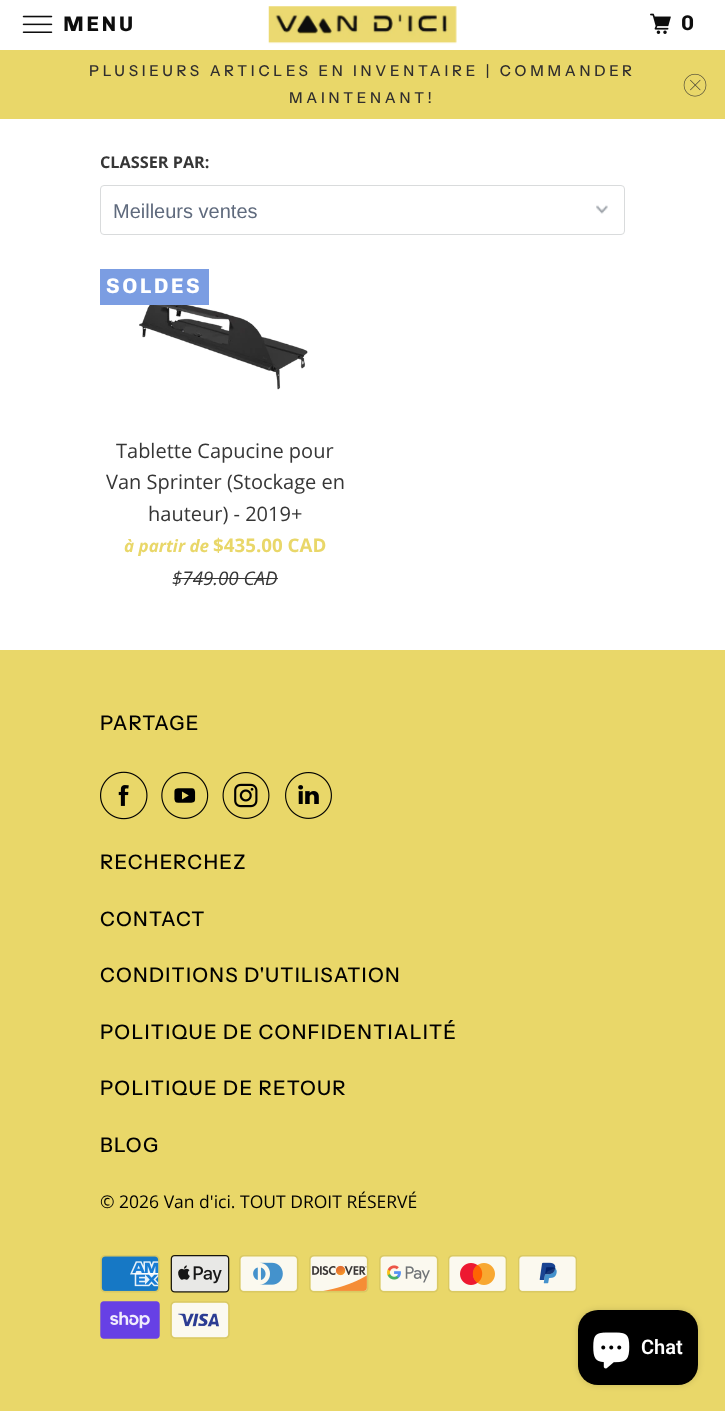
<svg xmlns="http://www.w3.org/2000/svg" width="725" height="1411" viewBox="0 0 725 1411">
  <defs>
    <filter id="blur1" x="-50%" y="-200%" width="200%" height="500%"><feGaussianBlur stdDeviation="3"/></filter>
  </defs>
  <rect width="100%" height="100%" fill="#ffffff"/>
  <image x="22" y="15" width="31" height="18" href="img1.png"/>
  <text x="63" y="31" font-family="Chivo" font-size="21.25" font-weight="bold" letter-spacing="2.5" fill="#0d0d0d">MENU</text>
  <image x="268" y="6" width="189" height="38" href="img2.png"/>
  <image x="650" y="13" width="21" height="21" href="img3.png"/>
  <text x="681" y="30" font-family="Chivo" font-size="21.25" font-weight="bold" letter-spacing="2.5" fill="#0d0d0d">0</text>
  <rect x="0" y="50" width="725" height="69" fill="#e9d769"/>
  <text x="89" y="76" font-family="Instrument Sans" font-size="15" font-weight="500" letter-spacing="3.75" fill="#302e2e">PLUSIEURS ARTICLES EN INVENTAIRE | COMMANDER</text>
  <text x="289" y="103" font-family="Instrument Sans" font-size="15" font-weight="500" letter-spacing="3.75" fill="#302e2e">MAINTENANT!</text>
  <image x="683" y="73" width="24" height="24" href="img4.png"/>
  <text x="100" y="168" font-family="Open Sans" font-size="16.25" font-weight="bold" fill="#363636">CLASSER PAR:</text>
  <image x="596" y="205" width="12" height="9" href="img5.png"/>
  <rect x="100.5" y="185.5" width="524" height="49" rx="3.5" fill="none" stroke="#d9dbdc"/>
  <text x="113" y="218" font-family="Liberation Sans" font-size="20" fill="#5f6a7d">Meilleurs ventes</text>
  <rect x="100" y="269" width="109" height="36" fill="#7b9de2"/>
  <text x="106" y="293" font-family="Chivo" font-size="21.25" font-weight="bold" letter-spacing="2.5" fill="#ffffff">SOLDES</text>
  <image x="139" y="305" width="169" height="85" href="img6.png"/>
  <text x="116" y="458" font-family="Open Sans" font-size="20" fill="#363636">Tablette Capucine pour</text>
  <text x="106" y="489" font-family="Open Sans" font-size="20" fill="#363636">Van Sprinter (Stockage en</text>
  <text x="148" y="521" font-family="Open Sans" font-size="20" fill="#363636">hauteur) - 2019+</text>
  <text x="124" y="552" font-family="Open Sans" font-size="17" font-weight="bold" font-style="italic" fill="#e9d769">à partir de</text>
  <text x="213" y="552" font-family="Open Sans" font-size="18.75" font-weight="bold" fill="#e9d769">$435.00 CAD</text>
  <text x="172" y="585" font-family="Open Sans" font-size="18.75" font-style="italic" fill="#363636">$749.00 CAD</text>
  <rect x="173" y="578" width="105" height="1" fill="#363636"/>
  <rect x="0" y="650" width="725" height="761" fill="#e9d769"/>
  <text x="100" y="730" font-family="Instrument Sans" font-size="20" font-weight="500" letter-spacing="1.25" fill="#000000">PARTAGE</text>
  <image x="100" y="771" width="48" height="49" href="img7.png"/>
  <image x="161" y="772" width="48" height="47" href="img8.png"/>
  <image x="222" y="772" width="48" height="47" href="img9.png"/>
  <image x="285" y="772" width="47" height="47" href="img10.png"/>
  <text x="100" y="869" font-family="Instrument Sans" font-size="20" font-weight="500" letter-spacing="1.25" fill="#000000">RECHERCHEZ</text>
  <text x="100" y="926" font-family="Instrument Sans" font-size="20" font-weight="500" letter-spacing="1.25" fill="#000000">CONTACT</text>
  <text x="100" y="982" font-family="Instrument Sans" font-size="20" font-weight="500" letter-spacing="1.25" fill="#000000">CONDITIONS D'UTILISATION</text>
  <text x="100" y="1039" font-family="Instrument Sans" font-size="20" font-weight="500" letter-spacing="1.25" fill="#000000">POLITIQUE DE CONFIDENTIALITÉ</text>
  <text x="100" y="1095" font-family="Instrument Sans" font-size="20" font-weight="500" letter-spacing="1.25" fill="#000000">POLITIQUE DE RETOUR</text>
  <text x="100" y="1152" font-family="Instrument Sans" font-size="20" font-weight="500" letter-spacing="1.25" fill="#000000">BLOG</text>
  <text x="100" y="1208" font-family="Open Sans" font-size="17.5" fill="#000000">© 2026 Van d'ici. TOUT DROIT RÉSERVÉ</text>
  <image x="100" y="1255" width="60" height="38" href="img11.png"/>
  <image x="170" y="1255" width="60" height="38" href="img12.png"/>
  <image x="239" y="1255" width="60" height="38" href="img13.png"/>
  <image x="309" y="1255" width="60" height="38" href="img14.png"/>
  <image x="379" y="1255" width="60" height="38" href="img15.png"/>
  <image x="448" y="1255" width="59" height="38" href="img16.png"/>
  <image x="518" y="1255" width="59" height="38" href="img17.png"/>
  <image x="100" y="1301" width="60" height="38" href="img18.png"/>
  <image x="170" y="1301" width="60" height="38" href="img19.png"/>
  <rect x="578" y="1310" width="120" height="75" rx="20" fill="#000000" fill-opacity="0.15" filter="url(#blur1)"/>
  <rect x="578" y="1310" width="120" height="75" rx="20" fill="#000000"/>
  <image x="593" y="1332" width="37" height="37" href="img20.png"/>
  <text x="641" y="1354" font-family="Roboto" font-size="20" font-weight="600" fill="#ffffff">Chat</text>
</svg>
